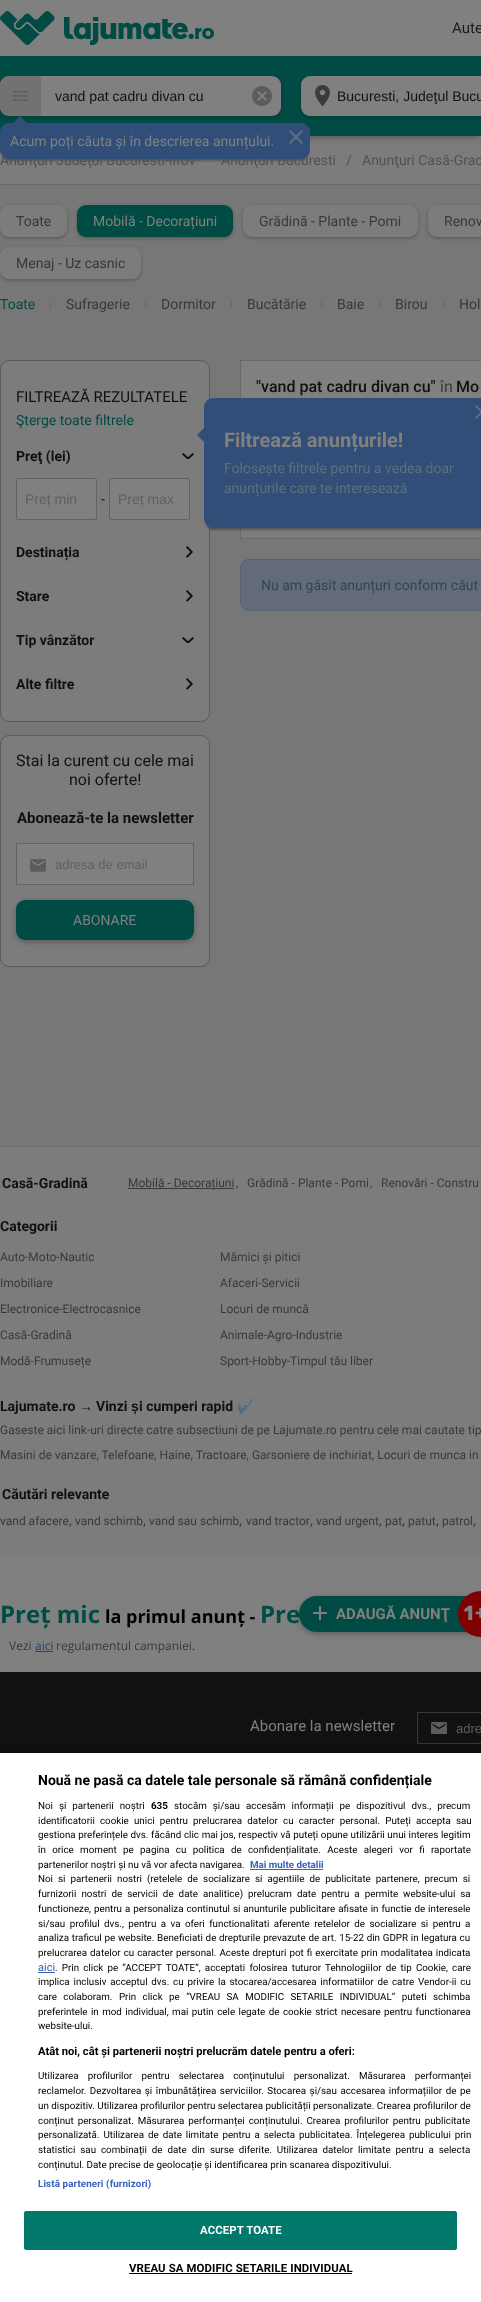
<svg xmlns="http://www.w3.org/2000/svg" width="481" height="2302" viewBox="0 0 481 2302">
  <defs>
    <filter id="blur1" x="-50%" y="-200%" width="200%" height="500%"><feGaussianBlur stdDeviation="5"/></filter>
    <filter id="blur2" x="-50%" y="-200%" width="200%" height="500%"><feGaussianBlur stdDeviation="2.5"/></filter>
    <filter id="blur3" x="-50%" y="-200%" width="200%" height="500%"><feGaussianBlur stdDeviation="1"/></filter>
    <filter id="blur4" x="-50%" y="-200%" width="200%" height="500%"><feGaussianBlur stdDeviation="2"/></filter>
    <filter id="blur5" x="-50%" y="-200%" width="200%" height="500%"><feGaussianBlur stdDeviation="1.5"/></filter>
    <filter id="blur6" x="-50%" y="-200%" width="200%" height="500%"><feGaussianBlur stdDeviation="9"/></filter>
  </defs>
  <rect width="100%" height="100%" fill="#777777"/>
  <rect x="0" y="136" width="481" height="48" fill="#7c7c7c"/>
  <rect x="0" y="58" width="481" height="80" fill="#000000" fill-opacity="0.12" filter="url(#blur1)"/>
  <rect x="0" y="58" width="481" height="80" fill="#000000" fill-opacity="0.16" filter="url(#blur2)"/>
  <rect x="0" y="0" width="481" height="56" fill="#808080"/>
  <image x="0" y="11" width="214" height="34" href="img1.png"/>
  <text x="452" y="33" font-family="Roboto" font-size="15" fill="#1d1d1d">Aute</text>
  <rect x="0" y="56" width="481" height="80" fill="#004b44"/>
  <rect x="0" y="78" width="281" height="40" rx="9" fill="#000000" fill-opacity="0.16" filter="url(#blur2)"/>
  <rect x="0" y="76" width="281" height="40" rx="9" fill="#808080"/>
  <text x="55" y="101" font-family="Liberation Sans" font-size="14" fill="#111111">vand pat cadru divan cu</text>
  <image x="252" y="86" width="20" height="20" href="img2.png"/>
  <rect x="301" y="78" width="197" height="40" rx="9" fill="#000000" fill-opacity="0.16" filter="url(#blur2)"/>
  <rect x="301" y="76" width="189" height="40" rx="9" fill="#808080"/>
  <image x="315" y="85" width="15" height="22" href="img3.png"/>
  <text x="337" y="101" font-family="Liberation Sans" font-size="14" fill="#111111">Bucuresti, Judeţul Bucu</text>
  <path d="M9 76H41V116H9C4 116 0 112 0 107V85C0 80 4 76 9 76Z" fill="#727272"/>
  <image x="13" y="91" width="15" height="10" href="img4.png"/>
  <path d="M27 123H13L20 116Z" fill="#314e79"/>
  <rect x="2" y="129" width="306" height="32" rx="7" fill="#000000" fill-opacity="0.3" filter="url(#blur3)"/>
  <text x="0" y="165" font-family="Roboto" font-size="14" fill="#525252">Anunţuri Judeţul Bucuresti-Ilfov</text>
  <text x="221" y="165" font-family="Roboto" font-size="14" fill="#525252">Anunţuri Bucuresti</text>
  <rect x="0" y="123" width="310" height="36" rx="9" fill="#314e79"/>
  <text x="10" y="146" font-family="Roboto" font-size="14" fill="#808080">Acum poți căuta și în descrierea anunțului.</text>
  <image x="289" y="130" width="14" height="14" href="img5.png"/>
  <rect x="0" y="184" width="481" height="1" fill="#696969"/>
  <text x="346" y="165" font-family="Roboto" font-size="14" fill="#525252">/</text>
  <text x="362" y="165" font-family="Roboto" font-size="14" fill="#525252">Anunţuri Casă-Grad</text>
  <rect x="0" y="206" width="67" height="32" rx="9" fill="#000000" fill-opacity="0.16" filter="url(#blur4)"/>
  <rect x="0" y="207" width="67" height="32" rx="9" fill="#000000" fill-opacity="0.1" filter="url(#blur5)"/>
  <rect x="0" y="205" width="67" height="32" rx="9" fill="#7c7c7c"/>
  <text x="16" y="226" font-family="Roboto" font-size="14" fill="#393939">Toate</text>
  <rect x="77" y="206" width="156" height="32" rx="9" fill="#000000" fill-opacity="0.16" filter="url(#blur4)"/>
  <rect x="77" y="207" width="156" height="32" rx="9" fill="#000000" fill-opacity="0.1" filter="url(#blur5)"/>
  <rect x="77" y="205" width="156" height="32" rx="9" fill="#004b44"/>
  <text x="93" y="226" font-family="Roboto" font-size="14" fill="#808080">Mobilă - Decorațiuni</text>
  <rect x="243" y="206" width="175" height="32" rx="9" fill="#000000" fill-opacity="0.16" filter="url(#blur4)"/>
  <rect x="243" y="207" width="175" height="32" rx="9" fill="#000000" fill-opacity="0.1" filter="url(#blur5)"/>
  <rect x="243" y="205" width="175" height="32" rx="9" fill="#7c7c7c"/>
  <text x="259" y="226" font-family="Roboto" font-size="14" fill="#393939">Grădină - Plante - Pomi</text>
  <rect x="428" y="206" width="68" height="32" rx="9" fill="#000000" fill-opacity="0.16" filter="url(#blur4)"/>
  <rect x="428" y="207" width="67" height="32" rx="9" fill="#000000" fill-opacity="0.1" filter="url(#blur5)"/>
  <rect x="428" y="205" width="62" height="32" rx="9" fill="#7c7c7c"/>
  <text x="444" y="226" font-family="Roboto" font-size="14" fill="#393939">Renov</text>
  <rect x="0" y="248" width="141" height="32" rx="9" fill="#000000" fill-opacity="0.16" filter="url(#blur4)"/>
  <rect x="0" y="249" width="141" height="32" rx="9" fill="#000000" fill-opacity="0.1" filter="url(#blur5)"/>
  <rect x="0" y="247" width="141" height="32" rx="9" fill="#7c7c7c"/>
  <text x="16" y="268" font-family="Roboto" font-size="14" fill="#393939">Menaj - Uz casnic</text>
  <rect x="50" y="301" width="1" height="7" fill="#696969"/>
  <text x="0" y="309" font-family="Roboto" font-size="14" fill="#004b44">Toate</text>
  <rect x="145" y="301" width="1" height="7" fill="#696969"/>
  <text x="66" y="309" font-family="Roboto" font-size="14" fill="#393939">Sufragerie</text>
  <rect x="231" y="301" width="1" height="7" fill="#696969"/>
  <text x="161" y="309" font-family="Roboto" font-size="14" fill="#393939">Dormitor</text>
  <rect x="321" y="301" width="1" height="7" fill="#696969"/>
  <text x="247" y="309" font-family="Roboto" font-size="14" fill="#393939">Bucătărie</text>
  <rect x="379" y="301" width="1" height="7" fill="#696969"/>
  <text x="337" y="309" font-family="Roboto" font-size="14" fill="#393939">Baie</text>
  <rect x="443" y="301" width="1" height="7" fill="#696969"/>
  <text x="395" y="309" font-family="Roboto" font-size="14" fill="#393939">Birou</text>
  <text x="459" y="309" font-family="Roboto" font-size="14" fill="#393939">Hol</text>
  <rect x="241" y="361" width="240" height="37" fill="#808080"/>
  <rect x="240.5" y="360.5" width="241" height="178" fill="none" stroke="#696969"/>
  <text x="256" y="392" font-family="Roboto" font-size="16" font-weight="500" fill="#111111">"vand pat cadru divan cu"</text>
  <text x="440" y="392" font-family="Roboto" font-size="16" fill="#393939">în</text>
  <text x="456" y="392" font-family="Roboto" font-size="16" font-weight="500" fill="#111111">Mo</text>
  <rect x="241" y="528" width="240" height="10" fill="#7c7c7c"/>
  <rect x="256" y="502" width="207" height="28" rx="4" fill="#808080"/>
  <rect x="0.5" y="360.5" width="209" height="361" rx="8.5" fill="#7c7c7c" stroke="#5b5b5b"/>
  <text x="16" y="402" font-family="Roboto" font-size="15" fill="#111111">FILTREAZĂ REZULTATELE</text>
  <text x="16" y="425" font-family="Roboto" font-size="14" fill="#004b44">Şterge toate filtrele</text>
  <image x="182" y="453" width="12" height="6" href="img6.png"/>
  <text x="16" y="461" font-family="Roboto" font-size="14" font-weight="bold" fill="#111111">Preţ (lei)</text>
  <rect x="16.5" y="478.5" width="80" height="41" rx="1.5" fill="#808080" stroke="#626262"/>
  <text x="25" y="504" font-family="Liberation Sans" font-size="14" fill="#5f5f5f">Preț min</text>
  <text x="101" y="504" font-family="Roboto" font-size="14" fill="#111111">-</text>
  <rect x="109.5" y="478.5" width="80" height="41" rx="1.5" fill="#808080" stroke="#626262"/>
  <text x="118" y="504" font-family="Liberation Sans" font-size="14" fill="#5f5f5f">Preț max</text>
  <image x="186" y="546" width="7" height="12" href="img7.png"/>
  <text x="16" y="557" font-family="Roboto" font-size="14" font-weight="bold" fill="#111111">Destinația</text>
  <image x="186" y="590" width="7" height="12" href="img7.png"/>
  <text x="16" y="601" font-family="Roboto" font-size="14" font-weight="bold" fill="#111111">Stare</text>
  <image x="182" y="637" width="12" height="6" href="img6.png"/>
  <text x="16" y="645" font-family="Roboto" font-size="14" font-weight="bold" fill="#111111">Tip vânzător</text>
  <image x="186" y="678" width="7" height="12" href="img7.png"/>
  <text x="16" y="689" font-family="Roboto" font-size="14" font-weight="bold" fill="#111111">Alte filtre</text>
  <path d="M204 428V442L197 435Z" fill="#314e79"/>
  <rect x="206" y="404" width="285" height="126" rx="7" fill="#000000" fill-opacity="0.3" filter="url(#blur3)"/>
  <rect x="204" y="398" width="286" height="130" rx="9" fill="#314e79"/>
  <image x="475" y="405" width="6" height="14" href="img8.png"/>
  <text x="224" y="447" font-family="Roboto" font-size="20" font-weight="bold" fill="#808080">Filtrează anunțurile!</text>
  <text x="224" y="473" font-family="Roboto" font-size="14" fill="#5e6f7e">Folosește filtrele pentru a vedea doar</text>
  <text x="224" y="493" font-family="Roboto" font-size="14" fill="#5e6f7e">anunțurile care te interesează</text>
  <rect x="0.5" y="735.5" width="209" height="231" rx="8.5" fill="#7c7c7c" stroke="#5b5b5b"/>
  <text x="16" y="766" font-family="Roboto" font-size="16" fill="#111111">Stai la curent cu cele mai</text>
  <text x="69" y="785" font-family="Roboto" font-size="16" fill="#111111">noi oferte!</text>
  <text x="17" y="823" font-family="Roboto" font-size="15" font-weight="bold" fill="#111111">Abonează-te la newsletter</text>
  <rect x="16.5" y="843.5" width="177" height="41" fill="none" stroke="#626262"/>
  <rect x="17" y="844" width="176" height="40" rx="2" fill="#808080"/>
  <image x="30" y="859" width="16" height="13" href="img9.png"/>
  <text x="55" y="869" font-family="Liberation Sans" font-size="13" fill="#5f5f5f">adresa de email</text>
  <rect x="16" y="902" width="178" height="40" rx="9" fill="#000000" fill-opacity="0.12" filter="url(#blur1)"/>
  <rect x="16" y="902" width="178" height="40" rx="9" fill="#000000" fill-opacity="0.16" filter="url(#blur2)"/>
  <rect x="16" y="900" width="178" height="40" rx="9" fill="#004b44"/>
  <text x="73" y="925" font-family="Roboto" font-size="14" fill="#808080">ABONARE</text>
  <rect x="240.5" y="559.5" width="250" height="51" rx="8.5" fill="#636b79" stroke="#536278"/>
  <text x="261" y="590" font-family="Roboto" font-size="14" fill="#32445d">Nu am găsit anunțuri conform căut</text>
  <rect x="0" y="1147" width="481" height="409" fill="#7c7c7c"/>
  <rect x="0" y="1146" width="481" height="1" fill="#6d6d6d"/>
  <text x="2" y="1188" font-family="Roboto" font-size="14" font-weight="bold" fill="#111111">Casă-Gradină</text>
  <rect x="128" y="1188" width="106" height="1" fill="#393939"/>
  <text x="128" y="1187" font-family="Roboto" font-size="12" fill="#393939">Mobilă - Decorațiuni</text>
  <text x="236" y="1187" font-family="Roboto" font-size="12" fill="#393939">,</text>
  <text x="247" y="1187" font-family="Roboto" font-size="12" fill="#393939">Grădină - Plante - Pomi</text>
  <text x="370" y="1187" font-family="Roboto" font-size="12" fill="#393939">,</text>
  <text x="381" y="1187" font-family="Roboto" font-size="12" fill="#393939">Renovări - Constru</text>
  <text x="0" y="1231" font-family="Roboto" font-size="14" font-weight="bold" fill="#111111">Categorii</text>
  <text x="0" y="1261" font-family="Roboto" font-size="12" fill="#393939">Auto-Moto-Nautic</text>
  <text x="0" y="1287" font-family="Roboto" font-size="12" fill="#393939">Imobiliare</text>
  <text x="0" y="1313" font-family="Roboto" font-size="12" fill="#393939">Electronice-Electrocasnice</text>
  <text x="0" y="1339" font-family="Roboto" font-size="12" fill="#393939">Casă-Gradină</text>
  <text x="0" y="1365" font-family="Roboto" font-size="12" fill="#393939">Modă-Frumusețe</text>
  <text x="220" y="1261" font-family="Roboto" font-size="12" fill="#393939">Mămici și pitici</text>
  <text x="220" y="1287" font-family="Roboto" font-size="12" fill="#393939">Afaceri-Servicii</text>
  <text x="220" y="1313" font-family="Roboto" font-size="12" fill="#393939">Locuri de muncă</text>
  <text x="220" y="1339" font-family="Roboto" font-size="12" fill="#393939">Animale-Agro-Industrie</text>
  <text x="220" y="1365" font-family="Roboto" font-size="12" fill="#393939">Sport-Hobby-Timpul tău liber</text>
  <text x="0" y="1411" font-family="Roboto" font-size="14" font-weight="bold" fill="#111111">Lajumate.ro</text>
  <text x="79" y="1411" font-family="Liberation Sans" font-size="14" font-weight="bold" fill="#111111">→</text>
  <text x="96" y="1411" font-family="Roboto" font-size="14" font-weight="bold" fill="#111111">Vinzi</text>
  <text x="131" y="1411" font-family="Liberation Sans" font-size="14" font-weight="bold" fill="#111111">ș</text>
  <text x="139" y="1411" font-family="Roboto" font-size="14" font-weight="bold" fill="#111111">i cumperi rapid</text>
  <text x="236" y="1411" font-family="Noto Color Emoji" font-size="14" font-weight="bold" fill="#111111">✔️</text>
  <text x="0" y="1434" font-family="Roboto" font-size="12" fill="#393939">Gaseste aici link-uri directe catre subsectiuni de pe Lajumate.ro pentru cele mai cautate tip</text>
  <text x="0" y="1459" font-family="Roboto" font-size="12" fill="#393939">Masini de vanzare, Telefoane, Haine, Tractoare, Garsoniere de inchiriat, Locuri de munca in</text>
  <text x="2" y="1499" font-family="Roboto" font-size="14" font-weight="bold" fill="#111111">Căutări relevante</text>
  <text x="0" y="1525" font-family="Roboto" font-size="12" fill="#393939">vand afacere</text>
  <text x="69" y="1525" font-family="Roboto" font-size="14" fill="#393939">,</text>
  <text x="75" y="1525" font-family="Roboto" font-size="12" fill="#393939">vand schimb</text>
  <text x="143" y="1525" font-family="Roboto" font-size="14" fill="#393939">,</text>
  <text x="149" y="1525" font-family="Roboto" font-size="12" fill="#393939">vand sau schimb</text>
  <text x="239" y="1525" font-family="Roboto" font-size="14" fill="#393939">,</text>
  <text x="246" y="1525" font-family="Roboto" font-size="12" fill="#393939">vand tractor</text>
  <text x="310" y="1525" font-family="Roboto" font-size="14" fill="#393939">,</text>
  <text x="316" y="1525" font-family="Roboto" font-size="12" fill="#393939">vand urgent</text>
  <text x="379" y="1525" font-family="Roboto" font-size="14" fill="#393939">,</text>
  <text x="385" y="1525" font-family="Roboto" font-size="12" fill="#393939">pat</text>
  <text x="402" y="1525" font-family="Roboto" font-size="14" fill="#393939">,</text>
  <text x="408" y="1525" font-family="Roboto" font-size="12" fill="#393939">patut</text>
  <text x="436" y="1525" font-family="Roboto" font-size="14" fill="#393939">,</text>
  <text x="442" y="1525" font-family="Roboto" font-size="12" fill="#393939">patrol</text>
  <text x="473" y="1525" font-family="Roboto" font-size="14" fill="#393939">,</text>
  <rect x="0" y="1556" width="481" height="116" fill="#808080"/>
  <text x="0" y="1623" font-family="Open Sans" font-size="24" font-weight="bold" fill="#004b44">Preț mic</text>
  <text x="105" y="1623" font-family="Open Sans" font-size="18" font-weight="bold" fill="#000000">la primul anunț -</text>
  <text x="260" y="1623" font-family="Open Sans" font-size="24" font-weight="bold" fill="#004b44">Pre</text>
  <text x="9" y="1650" font-family="Open Sans" font-size="12" fill="#393939">Vezi</text>
  <text x="35" y="1650" font-family="Open Sans" font-size="12" fill="#274168">aici</text>
  <rect x="35" y="1651" width="18" height="1" fill="#274168"/>
  <text x="56" y="1650" font-family="Open Sans" font-size="12" fill="#393939">regulamentul campaniei.</text>
  <rect x="299" y="1598" width="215" height="36" rx="18" fill="#000000" fill-opacity="0.12" filter="url(#blur1)"/>
  <rect x="299" y="1598" width="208" height="36" rx="18" fill="#000000" fill-opacity="0.16" filter="url(#blur2)"/>
  <rect x="299" y="1596" width="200" height="36" rx="18" fill="#004b44"/>
  <image x="313" y="1606" width="14" height="14" href="img10.png"/>
  <text x="336" y="1619" font-family="Roboto" font-size="15" font-weight="bold" fill="#808080">ADAUGĂ ANUNŢ</text>
  <circle cx="481" cy="1614" r="23" fill="#7f0000"/>
  <text x="463" y="1620" font-family="Open Sans" font-size="20" font-weight="800" fill="#808080">1+</text>
  <rect x="0" y="1672" width="481" height="81" fill="#111111"/>
  <text x="250" y="1731" font-family="Roboto" font-size="15" fill="#808080">Abonare la newsletter</text>
  <rect x="417" y="1712" width="64" height="1" fill="#393939"/>
  <rect x="417" y="1743" width="64" height="1" fill="#393939"/>
  <rect x="417" y="1712" width="1" height="32" fill="#393939"/>
  <image x="431" y="1722" width="16" height="12" href="img11.png"/>
  <text x="456" y="1733" font-family="Liberation Sans" font-size="13" fill="#5f5f5f">adre</text>
  <rect x="0" y="1753" width="481" height="549" fill="#000000" fill-opacity="0.2" filter="url(#blur6)"/>
  <rect x="0" y="1753" width="481" height="549" fill="#ffffff"/>
  <text x="38" y="1785" font-family="Roboto" font-size="14" font-weight="bold" fill="#000000">Nouă ne pasă ca datele tale personale să rămână confidențiale</text>
  <text x="38" y="1809" word-spacing="3.5" font-family="Roboto" font-size="9.8" fill="#000000">Noi și partenerii noștri</text>
  <text x="151" y="1809" font-family="Roboto" font-size="9.8" font-weight="bold" fill="#000000">635</text>
  <text x="174" y="1809" word-spacing="3.5" font-family="Roboto" font-size="9.8" fill="#000000">stocăm și/sau accesăm informații pe dispozitivul dvs., precum</text>
  <text x="38" y="1824" word-spacing="2.75" font-family="Roboto" font-size="9.8" fill="#000000">identificatorii cookie unici pentru prelucrarea datelor cu caracter personal. Puteți accepta sau</text>
  <text x="38" y="1838" word-spacing="0.25" font-family="Roboto" font-size="9.8" fill="#000000">gestiona preferințele dvs. făcând clic mai jos, respectiv vă puteți opune utilizării unui interes legitim</text>
  <text x="38" y="1853" word-spacing="3.9" font-family="Roboto" font-size="9.8" fill="#000000">în orice moment pe pagina cu politica de confidențialitate. Aceste alegeri vor fi raportate</text>
  <text x="38" y="1868" font-family="Roboto" font-size="9.8" fill="#000000">partenerilor noștri și nu vă vor afecta navigarea.</text>
  <text x="250" y="1868" font-family="Roboto" font-size="9.8" font-weight="bold" fill="#3860be">Mai multe detalii</text>
  <rect x="250" y="1869" width="73" height="1" fill="#3860be"/>
  <text x="38" y="1882" word-spacing="2.6" font-family="Roboto" font-size="9.8" fill="#000000">Noi si partenerii nostri (retelele de socializare si agentiile de publicitate partenere, precum si</text>
  <text x="38" y="1897" word-spacing="2.6" font-family="Roboto" font-size="9.8" fill="#000000">furnizorii nostri de servicii de date analitice) prelucram date pentru a permite website-ului sa</text>
  <text x="38" y="1912" word-spacing="0.5" font-family="Roboto" font-size="9.8" fill="#000000">functioneze, pentru a personaliza continutul si anunturile publicitare afisate in functie de interesele</text>
  <text x="38" y="1927" word-spacing="2" font-family="Roboto" font-size="9.8" fill="#000000">si/sau profilul dvs., pentru a va oferi functionalitati aferente retelelor de socializare si pentru a</text>
  <text x="38" y="1941" word-spacing="0.3" font-family="Roboto" font-size="9.8" fill="#000000">analiza traficul pe website. Beneficiati de drepturile prevazute de art. 15-22 din GDPR in legatura cu</text>
  <text x="38" y="1956" word-spacing="0.6" font-family="Roboto" font-size="9.8" fill="#000000">prelucrarea datelor cu caracter personal. Aceste drepturi pot fi exercitate prin modalitatea indicata</text>
  <text x="38" y="1971" font-family="Roboto" font-size="11" fill="#3860be">aici</text>
  <rect x="38" y="1972" width="17" height="1" fill="#3860be"/>
  <text x="55" y="1971" word-spacing="1.75" font-family="Roboto" font-size="9.8" fill="#000000">. Prin click pe “ACCEPT TOATE”, acceptati folosirea tuturor Tehnologiilor de tip Cookie, care</text>
  <text x="38" y="1985" word-spacing="1.4" font-family="Roboto" font-size="9.8" fill="#000000">implica inclusiv acceptul dvs. cu privire la stocarea/accesarea informatiilor de catre Vendor-ii cu</text>
  <text x="38" y="2000" word-spacing="4" font-family="Roboto" font-size="9.8" fill="#000000">care colaboram. Prin click pe “VREAU SA MODIFIC SETARILE INDIVIDUAL” puteti schimba</text>
  <text x="38" y="2015" word-spacing="1" font-family="Roboto" font-size="9.8" fill="#000000">preferintele in mod individual, mai putin cele legate de cookie strict necesare pentru functionarea</text>
  <text x="38" y="2029" font-family="Roboto" font-size="9.8" fill="#000000">website-ului.</text>
  <text x="38" y="2055" font-family="Roboto" font-size="11.2" font-weight="bold" fill="#000000">Atât noi, cât și partenerii noștri prelucrăm datele pentru a oferi:</text>
  <text x="38" y="2079" word-spacing="6.75" font-family="Roboto" font-size="9.8" fill="#000000">Utilizarea profilurilor pentru selectarea conținutului personalizat. Măsurarea performanței</text>
  <text x="38" y="2094" word-spacing="1.1" font-family="Roboto" font-size="9.8" fill="#000000">reclamelor. Dezvoltarea și îmbunătățirea serviciilor. Stocarea și/sau accesarea informațiilor de pe</text>
  <text x="38" y="2109" font-family="Roboto" font-size="9.8" fill="#000000">un dispozitiv. Utilizarea profilurilor pentru selectarea publicității personalizate. Crearea profilurilor de</text>
  <text x="38" y="2124" word-spacing="1.5" font-family="Roboto" font-size="9.8" fill="#000000">conținut personalizat. Măsurarea performanței conținutului. Crearea profilurilor pentru publicitate</text>
  <text x="38" y="2138" word-spacing="1.5" font-family="Roboto" font-size="9.8" fill="#000000">personalizată. Utilizarea de date limitate pentru a selecta publicitatea. Înțelegerea publicului prin</text>
  <text x="38" y="2153" word-spacing="2.5" font-family="Roboto" font-size="9.8" fill="#000000">statistici sau combinații de date din surse diferite. Utilizarea datelor limitate pentru a selecta</text>
  <text x="38" y="2168" font-family="Roboto" font-size="9.8" fill="#000000">conținutul. Date precise de geolocație și identificarea prin scanarea dispozitivului.</text>
  <text x="38" y="2187" font-family="Roboto" font-size="9.8" font-weight="bold" letter-spacing="0.1" fill="#3860be">Listă parteneri (furnizori)</text>
  <rect x="24.5" y="2211.5" width="432" height="38" rx="1.5" fill="#00796b" stroke="#00796b"/>
  <text x="200" y="2234" font-family="Roboto" font-size="11.4" font-weight="bold" letter-spacing="0.1" fill="#ffffff">ACCEPT TOATE</text>
  <text x="129" y="2272" font-family="Roboto" font-size="11.4" font-weight="bold" letter-spacing="0.1" fill="#000000">VREAU SA MODIFIC SETARILE INDIVIDUAL</text>
  <rect x="129" y="2273" width="223" height="1" fill="#000000"/>
</svg>
